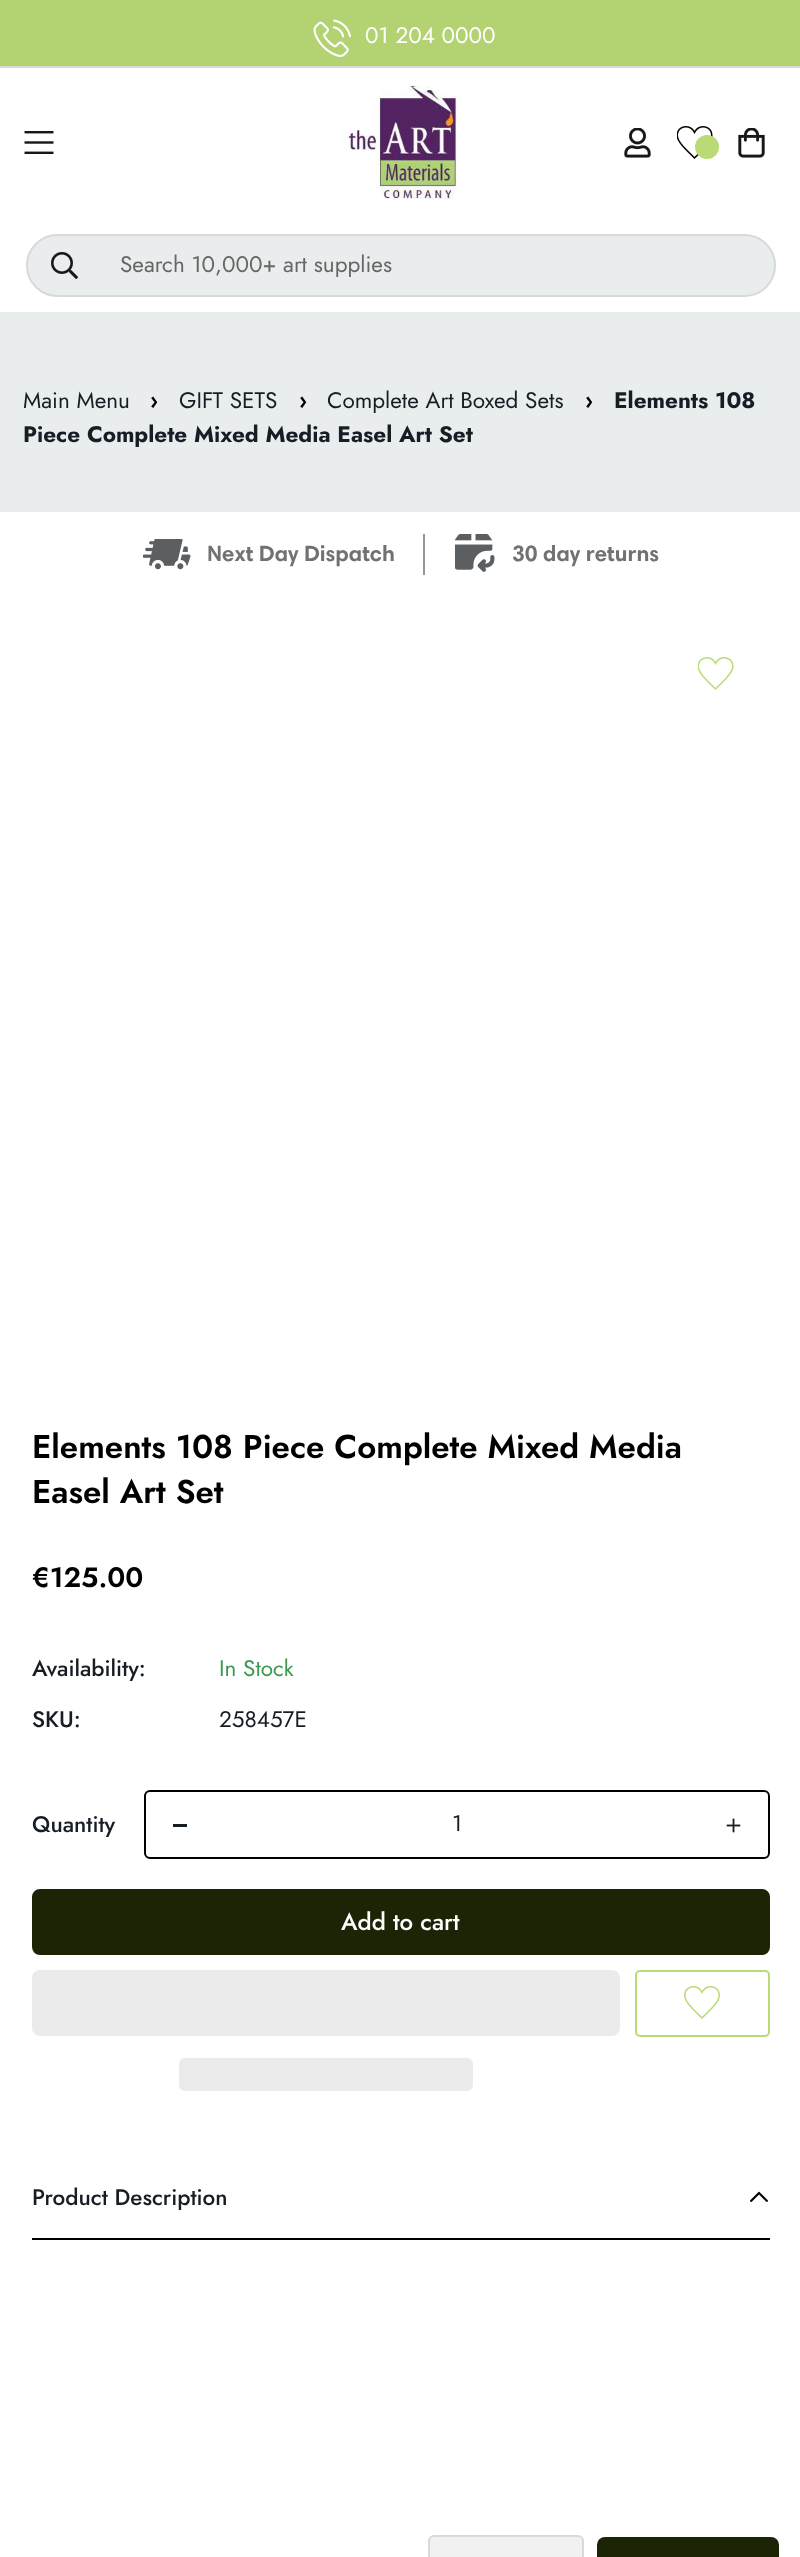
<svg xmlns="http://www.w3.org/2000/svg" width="800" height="2557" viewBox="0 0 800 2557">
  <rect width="100%" height="100%" fill="#eaeded"/>
  <rect x="0" y="0" width="800" height="66" fill="#b3d272"/>
  <rect x="0" y="66" width="800" height="2" fill="#d9d9d9"/>
  <image x="313" y="19" width="38" height="38" href="img1.png"/>
  <text x="365" y="43" font-family="Jost" font-size="22.5" fill="#ffffff">01 204 0000</text>
  <rect x="0" y="68" width="800" height="244" fill="#ffffff"/>
  <image x="24" y="131" width="30" height="23" href="img2.png"/>
  <image x="345" y="85" width="113" height="116" href="img3.png"/>
  <image x="624" y="128" width="27" height="30" href="img4.png"/>
  <image x="677" y="126" width="36" height="33" href="img5.png"/>
  <circle cx="707" cy="147" r="12" fill="#bada76"/>
  <image x="738" y="128" width="27" height="30" href="img6.png"/>
  <rect x="27" y="235" width="748" height="61" rx="30.5" fill="#eaeded" stroke="#d9d9d9" stroke-width="2"/>
  <image x="51" y="252" width="27" height="27" href="img7.png"/>
  <text x="120" y="272" font-family="Jost" font-size="22.5" fill="#666666">Search 10,000+ art supplies</text>
  <text x="23" y="408" font-family="Jost" font-size="22.5" fill="#161d25">Main Menu</text>
  <text x="150" y="408" font-family="Jost" font-size="22.5" font-weight="bold" fill="#000000">›</text>
  <text x="179" y="408" font-family="Jost" font-size="22.5" fill="#161d25">GIFT SETS</text>
  <text x="299" y="408" font-family="Jost" font-size="22.5" font-weight="bold" fill="#000000">›</text>
  <text x="327" y="408" font-family="Jost" font-size="22.5" fill="#161d25">Complete Art Boxed Sets</text>
  <text x="585" y="408" font-family="Jost" font-size="22.5" font-weight="bold" fill="#000000">›</text>
  <text x="614" y="408" font-family="Jost" font-size="22.5" font-weight="bold" fill="#161d25">Elements 108</text>
  <text x="23" y="442" font-family="Jost" font-size="22.5" font-weight="bold" fill="#161d25">Piece Complete Mixed Media Easel Art Set</text>
  <rect x="0" y="512" width="800" height="2045" fill="#ffffff"/>
  <image x="143" y="539" width="48" height="31" href="img8.png"/>
  <text x="207" y="561" font-family="'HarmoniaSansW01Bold'" font-size="22.25" font-weight="bold" fill="#717171">Next Day Dispatch</text>
  <rect x="423" y="534" width="2" height="41" fill="#979797"/>
  <image x="455" y="534" width="40" height="38" href="img9.png"/>
  <text x="512" y="561" font-family="'HarmoniaSansW01Bold'" font-size="22.25" font-weight="bold" fill="#717171">30 day returns</text>
  <image x="698" y="657" width="36" height="33" href="img10.png"/>
  <text x="32" y="1458" font-family="Jost" font-size="33" font-weight="600" fill="#000000">Elements 108 Piece Complete Mixed Media</text>
  <text x="32" y="1503" font-family="Jost" font-size="33" font-weight="600" fill="#000000">Easel Art Set</text>
  <text x="32" y="1587" font-family="Jost" font-size="28" font-weight="600" fill="#000000">€125.00</text>
  <text x="32" y="1676" font-family="Jost" font-size="22.5" font-weight="500" fill="#161d25">Availability:</text>
  <text x="219" y="1676" font-family="Jost" font-size="22.5" fill="#3d9851">In Stock</text>
  <text x="32" y="1727" font-family="Jost" font-size="22.5" font-weight="500" fill="#161d25">SKU:</text>
  <text x="219" y="1727" font-family="Jost" font-size="22.5" fill="#161d25">258457E</text>
  <text x="32" y="1832" font-family="Jost" font-size="22.5" font-weight="500" fill="#161d25">Quantity</text>
  <rect x="145" y="1791" width="624" height="67" rx="5" fill="none" stroke="#000000" stroke-width="2"/>
  <rect x="173" y="1824" width="14" height="3" fill="#161d25"/>
  <text x="452" y="1831" font-family="Jost" font-size="22.5" fill="#161d25">1</text>
  <image x="726" y="1818" width="15" height="15" href="img11.png"/>
  <rect x="33" y="1890" width="736" height="64" rx="7" fill="#1b2506" stroke="#1b2506" stroke-width="2"/>
  <text x="341" y="1930" font-family="Jost" font-size="24" font-weight="500" fill="#ffffff">Add to cart</text>
  <rect x="32" y="1970" width="588" height="66" rx="8" fill="#ebebeb"/>
  <rect x="179" y="2058" width="294" height="33" rx="6" fill="#ebebeb"/>
  <rect x="636" y="1971" width="133" height="65" rx="4" fill="none" stroke="#bada76" stroke-width="2"/>
  <image x="684" y="1986" width="36" height="33" href="img12.png"/>
  <rect x="32" y="2238" width="738" height="2" fill="#000000"/>
  <text x="32" y="2205" font-family="Jost" font-size="22.5" font-weight="500" fill="#161d25">Product Description</text>
  <image x="750" y="2191" width="18" height="11" href="img13.png"/>
  <rect x="429" y="2536" width="154" height="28" rx="5" fill="#f1f1f1" stroke="#d9d9d9" stroke-width="2"/>
  <rect x="598" y="2538" width="180" height="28" rx="7" fill="#1b2506" stroke="#1b2506" stroke-width="2"/>
</svg>
